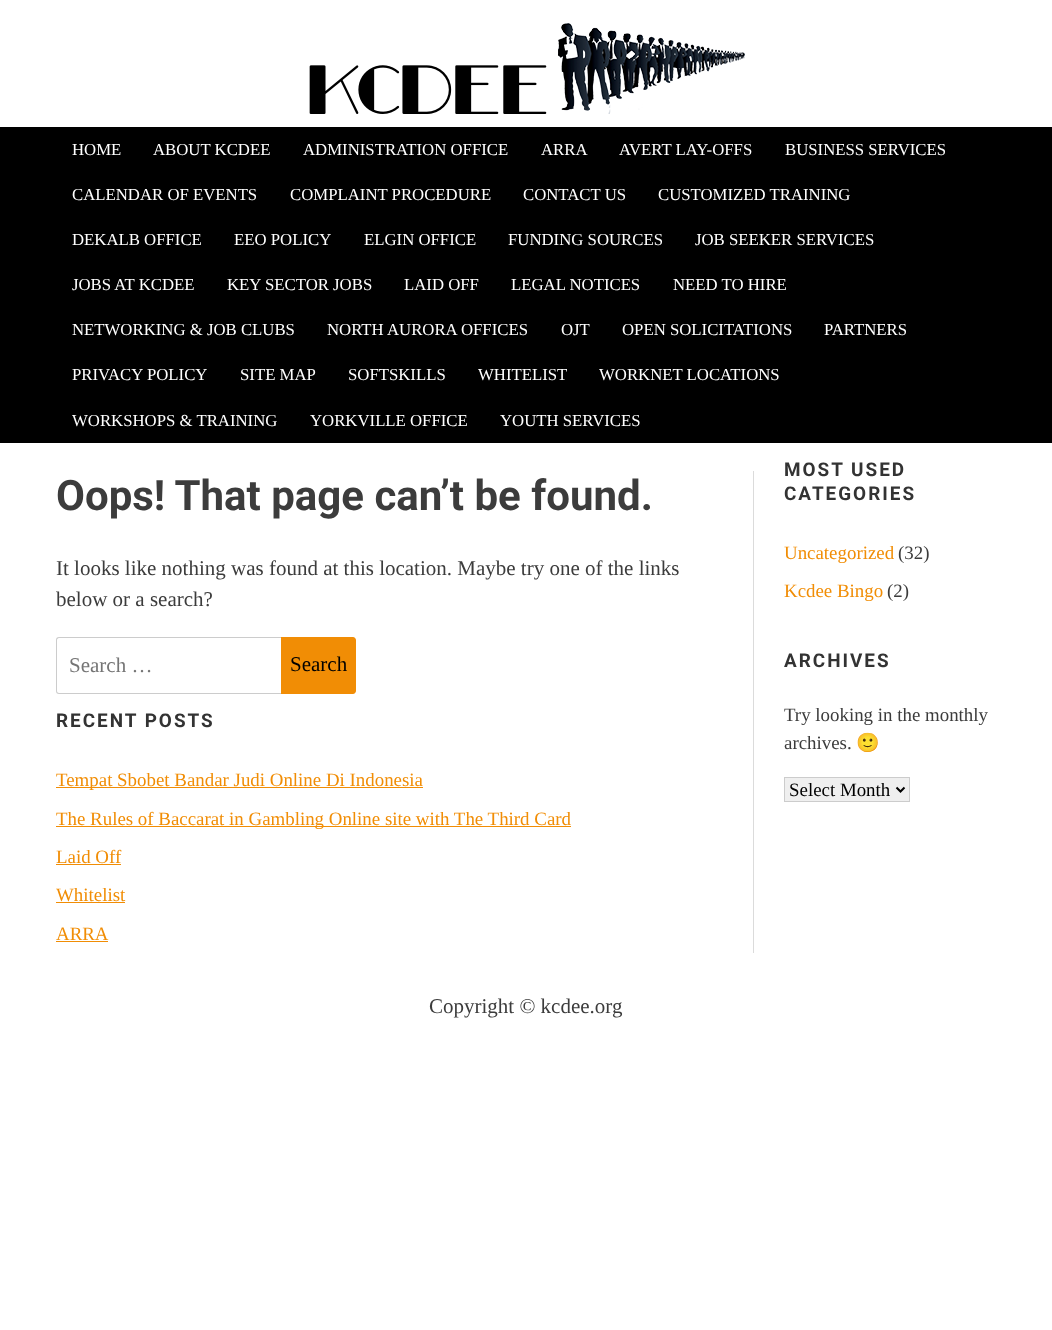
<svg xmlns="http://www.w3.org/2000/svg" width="1052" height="1330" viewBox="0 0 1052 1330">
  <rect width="100%" height="100%" fill="#ffffff"/>
  <image x="309" y="23" width="436" height="91" href="img1.png"/>
  <rect x="0" y="127" width="1052" height="316" fill="#000000"/>
  <text x="72" y="155" font-family="Liberation Serif" font-size="16.75" fill="#ffffff">HOME</text>
  <text x="153" y="155" font-family="Liberation Serif" font-size="16.75" fill="#ffffff">ABOUT KCDEE</text>
  <text x="303" y="155" font-family="Liberation Serif" font-size="16.75" fill="#ffffff">ADMINISTRATION OFFICE</text>
  <text x="541" y="155" font-family="Liberation Serif" font-size="16.75" fill="#ffffff">ARRA</text>
  <text x="619" y="155" font-family="Liberation Serif" font-size="16.75" fill="#ffffff">AVERT LAY-OFFS</text>
  <text x="785" y="155" font-family="Liberation Serif" font-size="16.75" fill="#ffffff">BUSINESS SERVICES</text>
  <text x="72" y="200" font-family="Liberation Serif" font-size="16.75" fill="#ffffff">CALENDAR OF EVENTS</text>
  <text x="290" y="200" font-family="Liberation Serif" font-size="16.75" fill="#ffffff">COMPLAINT PROCEDURE</text>
  <text x="523" y="200" font-family="Liberation Serif" font-size="16.75" fill="#ffffff">CONTACT US</text>
  <text x="658" y="200" font-family="Liberation Serif" font-size="16.75" fill="#ffffff">CUSTOMIZED TRAINING</text>
  <text x="72" y="245" font-family="Liberation Serif" font-size="16.75" fill="#ffffff">DEKALB OFFICE</text>
  <text x="234" y="245" font-family="Liberation Serif" font-size="16.75" fill="#ffffff">EEO POLICY</text>
  <text x="364" y="245" font-family="Liberation Serif" font-size="16.75" fill="#ffffff">ELGIN OFFICE</text>
  <text x="508" y="245" font-family="Liberation Serif" font-size="16.75" fill="#ffffff">FUNDING SOURCES</text>
  <text x="695" y="245" font-family="Liberation Serif" font-size="16.75" fill="#ffffff">JOB SEEKER SERVICES</text>
  <text x="72" y="290" font-family="Liberation Serif" font-size="16.75" fill="#ffffff">JOBS AT KCDEE</text>
  <text x="227" y="290" font-family="Liberation Serif" font-size="16.75" fill="#ffffff">KEY SECTOR JOBS</text>
  <text x="404" y="290" font-family="Liberation Serif" font-size="16.75" fill="#ffffff">LAID OFF</text>
  <text x="511" y="290" font-family="Liberation Serif" font-size="16.75" fill="#ffffff">LEGAL NOTICES</text>
  <text x="673" y="290" font-family="Liberation Serif" font-size="16.75" fill="#ffffff">NEED TO HIRE</text>
  <text x="72" y="335" font-family="Liberation Serif" font-size="16.75" fill="#ffffff">NETWORKING &amp; JOB CLUBS</text>
  <text x="327" y="335" font-family="Liberation Serif" font-size="16.75" fill="#ffffff">NORTH AURORA OFFICES</text>
  <text x="561" y="335" font-family="Liberation Serif" font-size="16.75" fill="#ffffff">OJT</text>
  <text x="622" y="335" font-family="Liberation Serif" font-size="16.75" fill="#ffffff">OPEN SOLICITATIONS</text>
  <text x="824" y="335" font-family="Liberation Serif" font-size="16.75" fill="#ffffff">PARTNERS</text>
  <text x="72" y="380" font-family="Liberation Serif" font-size="16.75" fill="#ffffff">PRIVACY POLICY</text>
  <text x="240" y="380" font-family="Liberation Serif" font-size="16.75" fill="#ffffff">SITE MAP</text>
  <text x="348" y="380" font-family="Liberation Serif" font-size="16.75" fill="#ffffff">SOFTSKILLS</text>
  <text x="478" y="380" font-family="Liberation Serif" font-size="16.75" fill="#ffffff">WHITELIST</text>
  <text x="599" y="380" font-family="Liberation Serif" font-size="16.75" fill="#ffffff">WORKNET LOCATIONS</text>
  <text x="72" y="426" font-family="Liberation Serif" font-size="16.75" fill="#ffffff">WORKSHOPS &amp; TRAINING</text>
  <text x="310" y="426" font-family="Liberation Serif" font-size="16.75" fill="#ffffff">YORKVILLE OFFICE</text>
  <text x="500" y="426" font-family="Liberation Serif" font-size="16.75" fill="#ffffff">YOUTH SERVICES</text>
  <rect x="753" y="471" width="1" height="482" fill="#dbdbdb"/>
  <text x="56" y="510" font-family="Roboto" font-size="42" font-weight="bold" fill="#3c3c3c">Oops! That page can’t be found.</text>
  <text x="56" y="575" font-family="Liberation Serif" font-size="21" fill="#3c3c3c">It looks like nothing was found at this location. Maybe try one of the links</text>
  <text x="56" y="606" font-family="Liberation Serif" font-size="21" fill="#3c3c3c">below or a search?</text>
  <path d="M59 637H281V694H59C57 694 56 693 56 691V640C56 638 57 637 59 637ZM59 638H281V693H59C58 693 57 692 57 691V640C57 639 58 638 59 638Z" fill="#cccccc" fill-rule="evenodd"/>
  <text x="69" y="672" font-family="Liberation Serif" font-size="21" fill="#757575">Search …</text>
  <path d="M281 637H353C354.5 637 356 638.5 356 640V691C356 692.5 354.5 694 353 694H281Z" fill="#f18d05"/>
  <text x="290" y="671" font-family="Liberation Serif" font-size="21" fill="#000000">Search</text>
  <text x="56" y="727" font-family="Roboto" font-size="18.9" font-weight="bold" letter-spacing="2" fill="#333333">RECENT POSTS</text>
  <rect x="56" y="787" width="367" height="1" fill="#f18d05"/>
  <text x="56" y="786" font-family="Liberation Serif" font-size="18.9" fill="#f18d05">Tempat Sbobet Bandar Judi Online Di Indonesia</text>
  <rect x="56" y="826" width="515" height="1" fill="#f18d05"/>
  <text x="56" y="825" font-family="Liberation Serif" font-size="18.9" fill="#f18d05">The Rules of Baccarat in Gambling Online site with The Third Card</text>
  <text x="56" y="863" font-family="Liberation Serif" font-size="18.9" fill="#f18d05">Laid Off</text>
  <rect x="56" y="864" width="65" height="1" fill="#f18d05"/>
  <text x="56" y="901" font-family="Liberation Serif" font-size="18.9" fill="#f18d05">Whitelist</text>
  <rect x="56" y="902" width="69" height="1" fill="#f18d05"/>
  <text x="56" y="940" font-family="Liberation Serif" font-size="18.9" fill="#f18d05">ARRA</text>
  <rect x="56" y="941" width="52" height="1" fill="#f18d05"/>
  <text x="784" y="476" font-family="Roboto" font-size="18.9" font-weight="bold" letter-spacing="2" fill="#333333">MOST USED</text>
  <text x="784" y="500" font-family="Roboto" font-size="18.9" font-weight="bold" letter-spacing="2" fill="#333333">CATEGORIES</text>
  <text x="784" y="559" font-family="Liberation Serif" font-size="18.9" fill="#f18d05">Uncategorized</text>
  <text x="898" y="559" font-family="Liberation Serif" font-size="18.9" fill="#3c3c3c">(32)</text>
  <text x="784" y="597" font-family="Liberation Serif" font-size="18.9" fill="#f18d05">Kcdee Bingo</text>
  <text x="887" y="597" font-family="Liberation Serif" font-size="18.9" fill="#3c3c3c">(2)</text>
  <text x="784" y="667" font-family="Roboto" font-size="18.9" font-weight="bold" letter-spacing="2" fill="#333333">ARCHIVES</text>
  <text x="784" y="721" font-family="Liberation Serif" font-size="18.9" fill="#3c3c3c">Try looking in the monthly</text>
  <text x="784" y="749" font-family="Liberation Serif" font-size="18.9" fill="#3c3c3c">archives.</text>
  <text x="856" y="749" font-family="Noto Color Emoji" font-size="18.9" fill="#3c3c3c">🙂</text>
  <rect x="784.5" y="777.5" width="125" height="24" fill="#efefef" stroke="#cccccc"/>
  <path d="M896.5 787.5L900.5 791.5L904.5 787.5" fill="none" stroke="#000000" stroke-width="2"/>
  <text x="789" y="796" font-family="Liberation Serif" font-size="18.9" fill="#000000">Select Month</text>
  <text x="429" y="1013" font-family="Liberation Serif" font-size="21" fill="#3c3c3c">Copyright © kcdee.org</text>
</svg>
